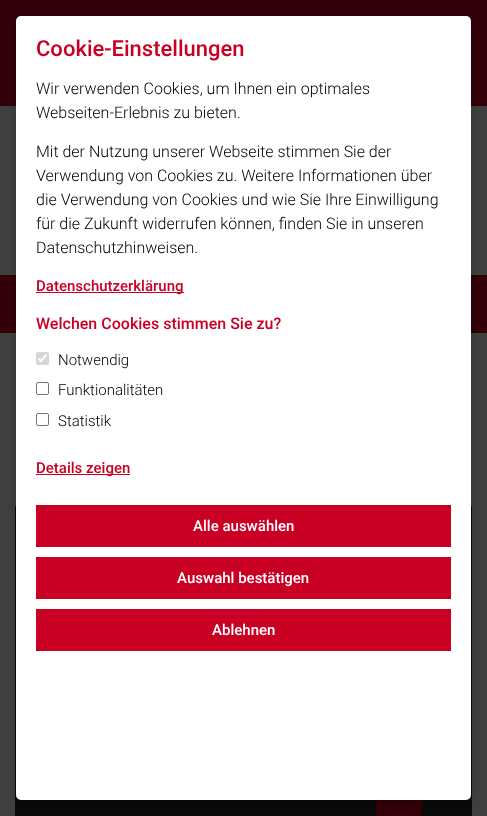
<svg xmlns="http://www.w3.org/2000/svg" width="487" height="816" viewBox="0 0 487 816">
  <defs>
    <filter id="blur1" x="-50%" y="-200%" width="200%" height="500%"><feGaussianBlur stdDeviation="5"/></filter>
  </defs>
  <rect width="100%" height="100%" fill="#404040"/>
  <rect x="0" y="0" width="487" height="106" fill="#320009"/>
  <rect x="0" y="275" width="487" height="58" fill="#320009"/>
  <rect x="15" y="506" width="457" height="310" fill="#090909"/>
  <rect x="376" y="800" width="46" height="16" fill="#320009"/>
  <rect x="16" y="18" width="455" height="784" rx="5" fill="#000000" fill-opacity="0.25" filter="url(#blur1)"/>
  <rect x="16" y="16" width="455" height="784" rx="5" fill="#ffffff"/>
  <text x="36" y="56" font-family="Roboto" font-size="22" font-weight="500" fill="#c90024">Cookie-Einstellungen</text>
  <text x="36" y="94" font-family="Roboto" font-size="16" font-weight="300" fill="#000000">Wir verwenden Cookies, um Ihnen ein optimales</text>
  <text x="36" y="118" font-family="Roboto" font-size="16" font-weight="300" fill="#000000">Webseiten-Erlebnis zu bieten.</text>
  <text x="36" y="157" font-family="Roboto" font-size="16" font-weight="300" fill="#000000">Mit der Nutzung unserer Webseite stimmen Sie der</text>
  <text x="36" y="181" font-family="Roboto" font-size="16" font-weight="300" fill="#000000">Verwendung von Cookies zu. Weitere Informationen über</text>
  <text x="36" y="205" font-family="Roboto" font-size="16" font-weight="300" fill="#000000">die Verwendung von Cookies und wie Sie Ihre Einwilligung</text>
  <text x="36" y="229" font-family="Roboto" font-size="16" font-weight="300" fill="#000000">für die Zukunft widerrufen können, finden Sie in unseren</text>
  <text x="36" y="253" font-family="Roboto" font-size="16" font-weight="300" fill="#000000">Datenschutzhinweisen.</text>
  <rect x="36" y="292" width="148" height="1" fill="#c90024"/>
  <text x="36" y="291" font-family="Roboto" font-size="15" font-weight="500" fill="#c90024">Datenschutzerklärung</text>
  <text x="36" y="329" font-family="Roboto" font-size="16" font-weight="500" fill="#c90024">Welchen Cookies stimmen Sie zu?</text>
  <rect x="36" y="352" width="13" height="13" rx="2" fill="#d6d6d6"/>
  <path d="M38.5 358.5L41 361L46.5 354.5" fill="none" stroke="#ffffff" stroke-width="2.1"/>
  <text x="58" y="365" font-family="Roboto" font-size="15" font-weight="300" fill="#000000">Notwendig</text>
  <rect x="36.5" y="382.5" width="12" height="12" rx="1.5" fill="none" stroke="#767676"/>
  <text x="58" y="395" font-family="Roboto" font-size="15" font-weight="300" fill="#000000">Funktionalitäten</text>
  <rect x="36.5" y="413.5" width="12" height="12" rx="1.5" fill="none" stroke="#767676"/>
  <text x="58" y="426" font-family="Roboto" font-size="15" font-weight="300" fill="#000000">Statistik</text>
  <rect x="36" y="474" width="94" height="1" fill="#c90024"/>
  <text x="36" y="473" font-family="Roboto" font-size="15" font-weight="500" fill="#c90024">Details zeigen</text>
  <rect x="36" y="505" width="415" height="42" fill="#c90024"/>
  <text x="193" y="531" font-family="Roboto" font-size="15" font-weight="500" fill="#ffffff">Alle auswählen</text>
  <rect x="36" y="557" width="415" height="42" fill="#c90024"/>
  <text x="177" y="583" font-family="Roboto" font-size="15" font-weight="500" fill="#ffffff">Auswahl bestätigen</text>
  <rect x="36" y="609" width="415" height="42" fill="#c90024"/>
  <text x="212" y="635" font-family="Roboto" font-size="15" font-weight="500" fill="#ffffff">Ablehnen</text>
</svg>
